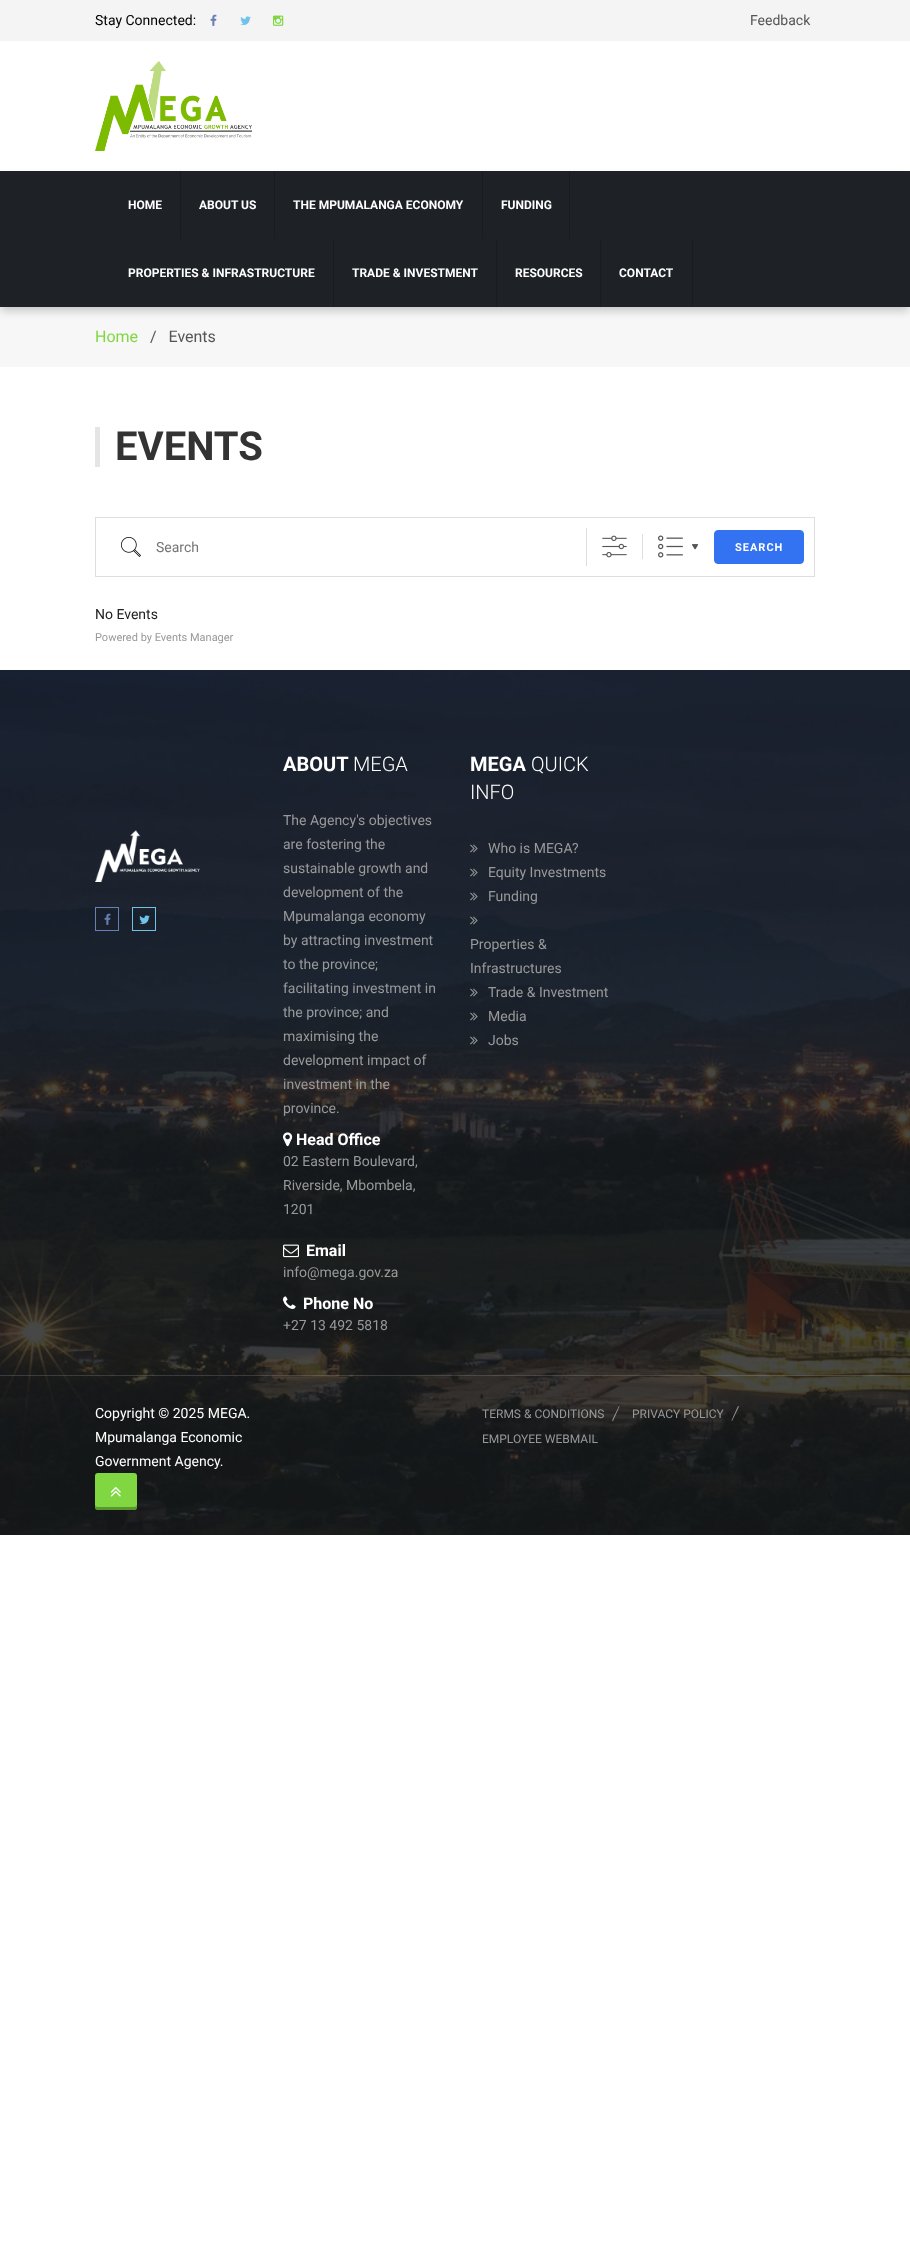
<svg xmlns="http://www.w3.org/2000/svg" width="910" height="2247" viewBox="0 0 910 2247">
  <defs>
    <filter id="blur1" x="-50%" y="-200%" width="200%" height="500%"><feGaussianBlur stdDeviation="4"/></filter>
  </defs>
  <rect width="100%" height="100%" fill="#ffffff"/>
  <rect x="0" y="0" width="910" height="41" fill="#f4f4f4"/>
  <text x="95" y="25" font-family="Roboto" font-size="14" fill="#000000">Stay Connected:</text>
  <image x="210" y="14" width="7" height="12" href="img1.png"/>
  <image x="240" y="16" width="11" height="9" href="img2.png"/>
  <image x="273" y="15" width="11" height="11" href="img3.png"/>
  <text x="750" y="25" font-family="Roboto" font-size="14" fill="#555555">Feedback</text>
  <image x="95" y="61" width="157" height="90" href="img4.png"/>
  <rect x="0" y="307" width="910" height="60" fill="#f7f7f7"/>
  <rect x="1" y="177" width="908" height="134" fill="#000000" fill-opacity="0.2" filter="url(#blur1)"/>
  <rect x="0" y="171" width="910" height="136" fill="#1e2227"/>
  <rect x="180" y="171" width="1" height="68" fill="#181b1f"/>
  <text x="128" y="209" font-family="Roboto" font-size="12" font-weight="bold" fill="#ffffff">HOME</text>
  <rect x="274" y="171" width="1" height="68" fill="#181b1f"/>
  <text x="199" y="209" font-family="Roboto" font-size="12" font-weight="bold" fill="#ffffff">ABOUT US</text>
  <rect x="482" y="171" width="1" height="68" fill="#181b1f"/>
  <text x="293" y="209" font-family="Roboto" font-size="12" font-weight="bold" fill="#ffffff">THE MPUMALANGA ECONOMY</text>
  <rect x="569" y="171" width="1" height="68" fill="#181b1f"/>
  <text x="501" y="209" font-family="Roboto" font-size="12" font-weight="bold" fill="#ffffff">FUNDING</text>
  <rect x="333" y="239" width="1" height="68" fill="#181b1f"/>
  <text x="128" y="277" font-family="Roboto" font-size="12" font-weight="bold" fill="#ffffff">PROPERTIES &amp; INFRASTRUCTURE</text>
  <rect x="496" y="239" width="1" height="68" fill="#181b1f"/>
  <text x="352" y="277" font-family="Roboto" font-size="12" font-weight="bold" fill="#ffffff">TRADE &amp; INVESTMENT</text>
  <rect x="600" y="239" width="1" height="68" fill="#181b1f"/>
  <text x="515" y="277" font-family="Roboto" font-size="12" font-weight="bold" fill="#ffffff">RESOURCES</text>
  <rect x="692" y="239" width="1" height="68" fill="#181b1f"/>
  <text x="619" y="277" font-family="Roboto" font-size="12" font-weight="bold" fill="#ffffff">CONTACT</text>
  <text x="95" y="342" font-family="Roboto" font-size="16" fill="#81d742">Home</text>
  <text x="150" y="342" font-family="Roboto" font-size="16" fill="#555555" xml:space="preserve">/   Events</text>
  <rect x="95" y="427" width="5" height="40" fill="#e5e5e5"/>
  <text x="115" y="460" font-family="Roboto" font-size="40" font-weight="bold" fill="#333333">EVENTS</text>
  <rect x="95.5" y="517.5" width="719" height="59" fill="none" stroke="#dedede"/>
  <rect x="586" y="528" width="1" height="38" fill="#dedede"/>
  <image x="121" y="537" width="20" height="20" href="img5.png"/>
  <text x="156" y="552" font-family="Roboto" font-size="14" fill="#757575">Search</text>
  <image x="602" y="535" width="25" height="23" href="img6.png"/>
  <rect x="642" y="534" width="1" height="25" fill="#dedede"/>
  <image x="692" y="544" width="7" height="6" href="img7.png"/>
  <image x="658" y="535" width="25" height="23" href="img8.png"/>
  <rect x="714.5" y="530.5" width="89" height="33" rx="3.5" fill="#3372f0" stroke="#3372f0"/>
  <text x="735" y="551" font-family="Roboto" font-size="11" font-weight="bold" letter-spacing="1" fill="#ffffff">SEARCH</text>
  <text x="95" y="619" font-family="Roboto" font-size="14" fill="#212121">No Events</text>
  <text x="95" y="641" font-family="Roboto" font-size="11" fill="#999999">Powered by Events Manager</text>
  <image x="0" y="670" width="910" height="865" href="img9.png"/>
  <image x="95" y="830" width="105" height="52" href="img10.png"/>
  <rect x="95.5" y="907.5" width="23" height="23" fill="none" stroke="#677fb5"/>
  <image x="104" y="913" width="7" height="12" href="img11.png"/>
  <rect x="132.5" y="907.5" width="23" height="23" fill="none" stroke="#70c2e9"/>
  <image x="139" y="915" width="11" height="9" href="img12.png"/>
  <text x="283" y="771" font-family="Roboto" font-size="20" font-weight="bold" fill="#ffffff">ABOUT</text>
  <text x="353" y="771" font-family="Roboto" font-size="20" font-weight="300" fill="#ffffff">MEGA</text>
  <text x="283" y="825" font-family="Roboto" font-size="14" fill="#999999">The Agency's objectives</text>
  <text x="283" y="849" font-family="Roboto" font-size="14" fill="#999999">are fostering the</text>
  <text x="283" y="873" font-family="Roboto" font-size="14" fill="#999999">sustainable growth and</text>
  <text x="283" y="897" font-family="Roboto" font-size="14" fill="#999999">development of the</text>
  <text x="283" y="921" font-family="Roboto" font-size="14" fill="#999999">Mpumalanga economy</text>
  <text x="283" y="945" font-family="Roboto" font-size="14" fill="#999999">by attracting investment</text>
  <text x="283" y="969" font-family="Roboto" font-size="14" fill="#999999">to the province;</text>
  <text x="283" y="993" font-family="Roboto" font-size="14" fill="#999999">facilitating investment in</text>
  <text x="283" y="1017" font-family="Roboto" font-size="14" fill="#999999">the province; and</text>
  <text x="283" y="1041" font-family="Roboto" font-size="14" fill="#999999">maximising the</text>
  <text x="283" y="1065" font-family="Roboto" font-size="14" fill="#999999">development impact of</text>
  <text x="283" y="1089" font-family="Roboto" font-size="14" fill="#999999">investment in the</text>
  <text x="283" y="1113" font-family="Roboto" font-size="14" fill="#999999">province.</text>
  <image x="283" y="1132" width="10" height="15" href="img13.png"/>
  <text x="296" y="1145" font-family="Roboto" font-size="16" font-weight="bold" fill="#ffffff">Head Office</text>
  <text x="283" y="1166" font-family="Roboto" font-size="14" fill="#999999">02 Eastern Boulevard,</text>
  <text x="283" y="1190" font-family="Roboto" font-size="14" fill="#999999">Riverside, Mbombela,</text>
  <text x="283" y="1214" font-family="Roboto" font-size="14" fill="#999999">1201</text>
  <image x="283" y="1244" width="16" height="14" href="img14.png"/>
  <text x="306" y="1256" font-family="Roboto" font-size="16" font-weight="bold" fill="#ffffff">Email</text>
  <text x="283" y="1277" font-family="Roboto" font-size="14" fill="#999999">info@mega.gov.za</text>
  <image x="283" y="1296" width="13" height="13" href="img15.png"/>
  <text x="303" y="1309" font-family="Roboto" font-size="16" font-weight="bold" fill="#ffffff">Phone No</text>
  <text x="283" y="1330" font-family="Roboto" font-size="14" fill="#999999">+27 13 492 5818</text>
  <text x="470" y="771" font-family="Roboto" font-size="20" font-weight="bold" fill="#ffffff">MEGA</text>
  <text x="531" y="771" font-family="Roboto" font-size="20" font-weight="300" fill="#ffffff">QUICK</text>
  <text x="470" y="799" font-family="Roboto" font-size="20" font-weight="300" fill="#ffffff">INFO</text>
  <image x="470" y="844" width="8" height="9" href="img16.png"/>
  <text x="488" y="853" font-family="Roboto" font-size="14" fill="#999999">Who is MEGA?</text>
  <image x="470" y="868" width="8" height="9" href="img17.png"/>
  <text x="488" y="877" font-family="Roboto" font-size="14" fill="#999999">Equity Investments</text>
  <image x="470" y="892" width="8" height="9" href="img18.png"/>
  <text x="488" y="901" font-family="Roboto" font-size="14" fill="#999999">Funding</text>
  <image x="470" y="916" width="8" height="9" href="img19.png"/>
  <text x="470" y="949" font-family="Roboto" font-size="14" fill="#999999">Properties &amp;</text>
  <text x="470" y="973" font-family="Roboto" font-size="14" fill="#999999">Infrastructures</text>
  <image x="470" y="988" width="8" height="9" href="img20.png"/>
  <text x="488" y="997" font-family="Roboto" font-size="14" fill="#999999">Trade &amp; Investment</text>
  <image x="470" y="1012" width="8" height="9" href="img21.png"/>
  <text x="488" y="1021" font-family="Roboto" font-size="14" fill="#999999">Media</text>
  <image x="470" y="1036" width="8" height="9" href="img22.png"/>
  <text x="488" y="1045" font-family="Roboto" font-size="14" fill="#999999">Jobs</text>
  <rect x="0" y="1375" width="910" height="1" fill="#ffffff" fill-opacity="0.15"/>
  <text x="95" y="1418" font-family="Roboto" font-size="14" fill="#ffffff">Copyright © 2025 MEGA.</text>
  <text x="95" y="1442" font-family="Roboto" font-size="14" fill="#ffffff">Mpumalanga Economic</text>
  <text x="95" y="1466" font-family="Roboto" font-size="14" fill="#ffffff">Government Agency.</text>
  <text x="482" y="1418" font-family="Roboto" font-size="12" fill="#999999">TERMS &amp; CONDITIONS</text>
  <path d="M619 1406L619.5 1406.5L613 1421L612 1420.5Z" fill="#999999"/>
  <text x="632" y="1418" font-family="Roboto" font-size="12" fill="#999999">PRIVACY POLICY</text>
  <path d="M738 1406L739 1406.5L732 1421L731.5 1420.5Z" fill="#999999"/>
  <text x="482" y="1443" font-family="Roboto" font-size="12" fill="#999999">EMPLOYEE WEBMAIL</text>
  <rect x="95" y="1473" width="42" height="37" rx="3" fill="#81d742"/>
  <path d="M95 1504C95 1511 97 1510 104 1510H128C135 1510 137 1511 137 1504C137 1506 136 1507 134 1507H98C96 1507 95 1506 95 1504Z" fill="#000000" fill-opacity="0.3"/>
  <image x="110" y="1486" width="11" height="11" href="img23.png"/>
</svg>
